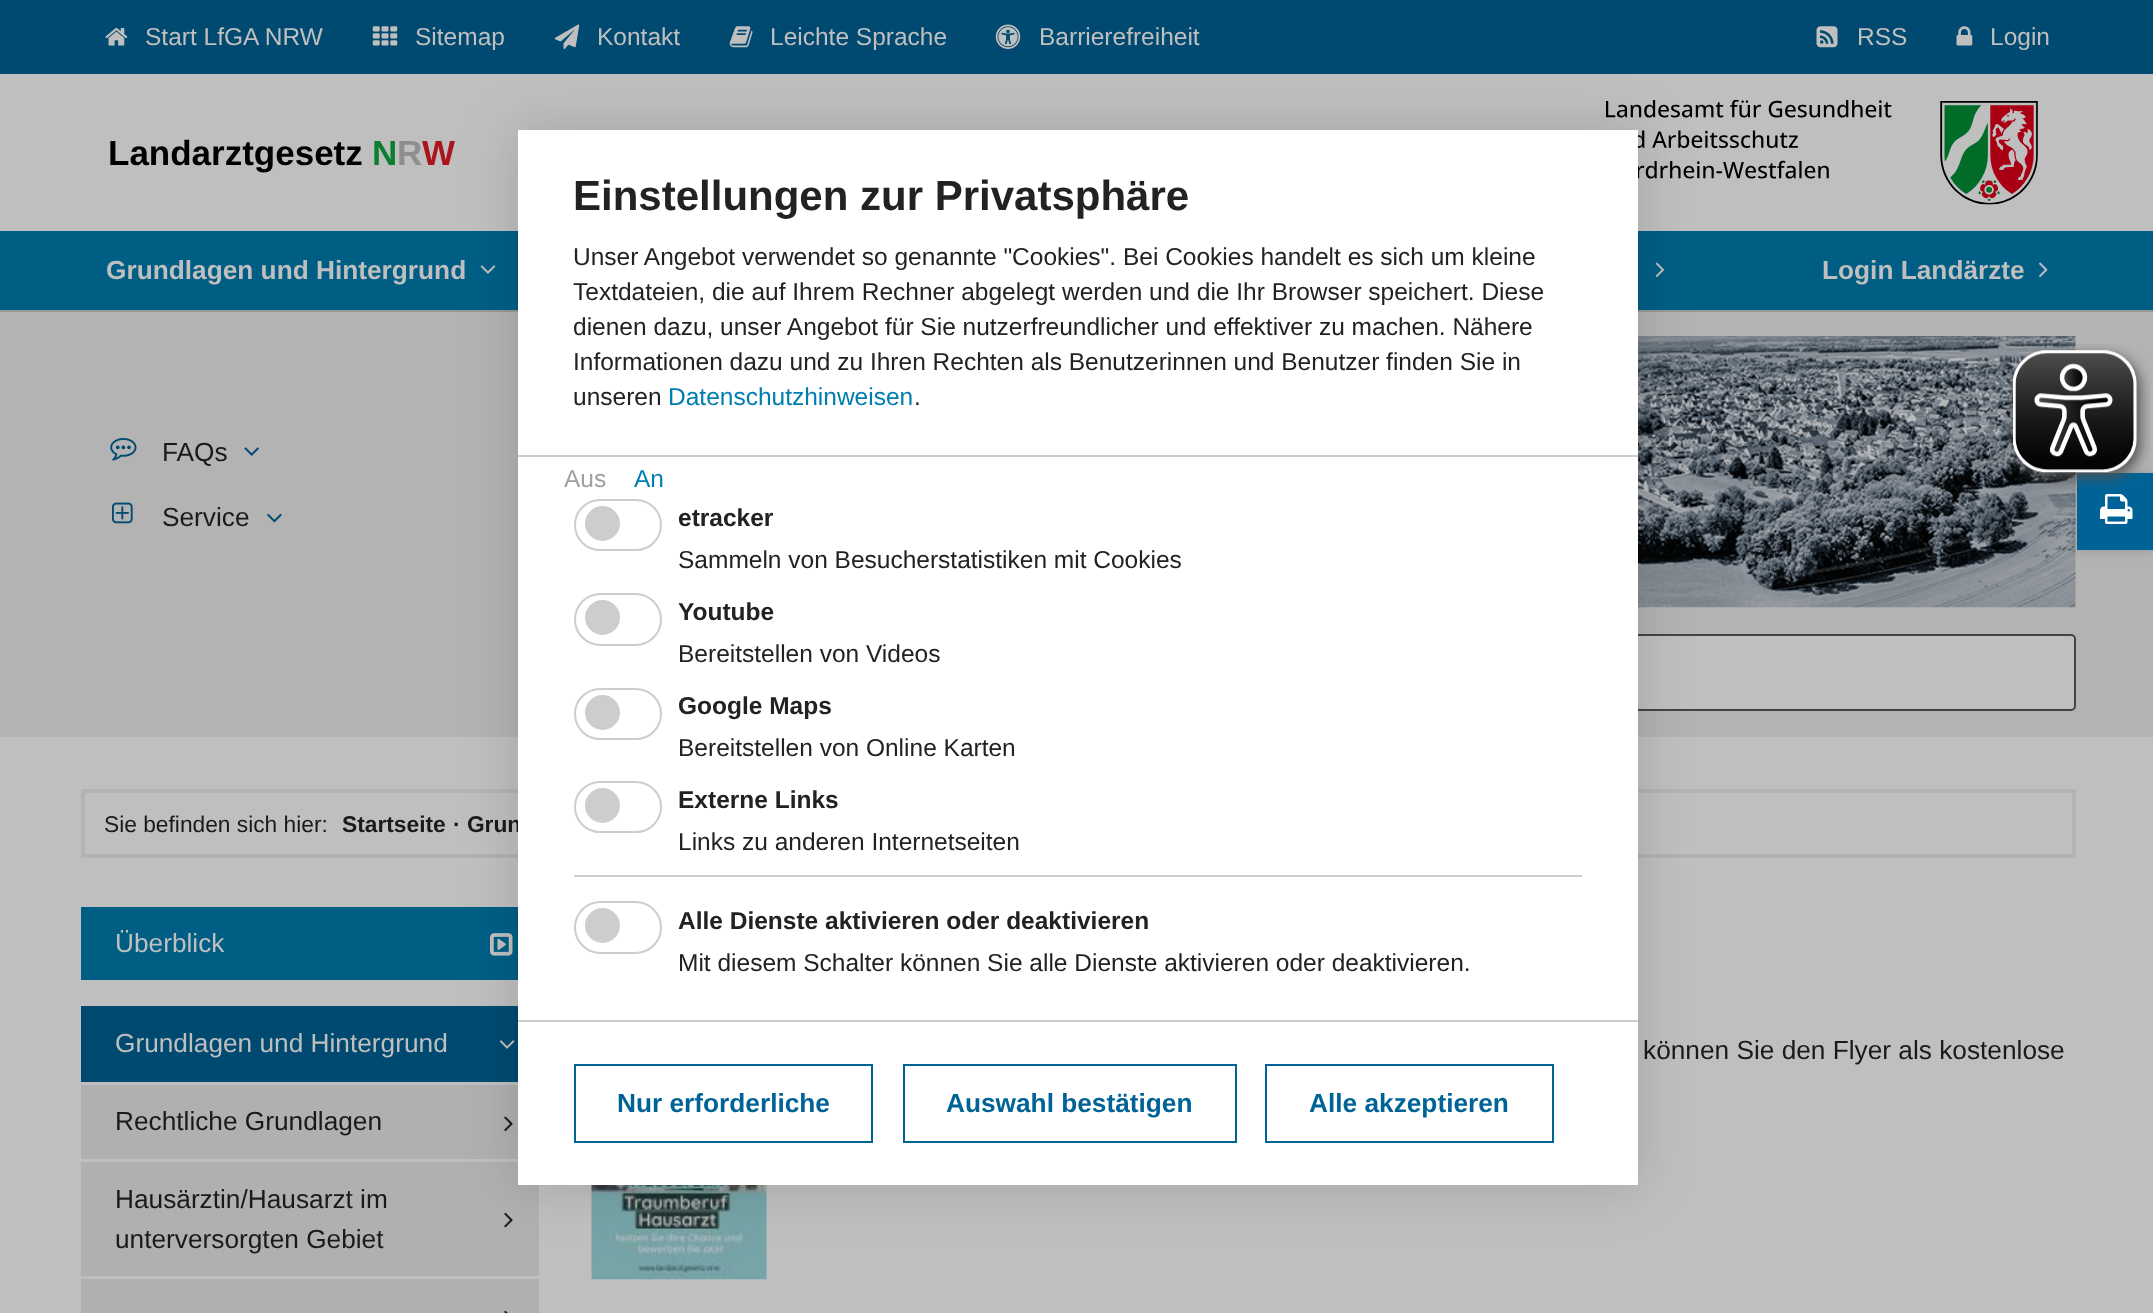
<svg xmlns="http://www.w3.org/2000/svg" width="2153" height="1313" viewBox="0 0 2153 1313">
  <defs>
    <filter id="blur1" x="-50%" y="-200%" width="200%" height="500%"><feGaussianBlur stdDeviation="5"/></filter>
    <filter id="blur2" x="-50%" y="-200%" width="200%" height="500%"><feGaussianBlur stdDeviation="28"/></filter>
  </defs>
  <rect width="100%" height="100%" fill="#bfbfbf"/>
  <rect x="0" y="0" width="2153" height="74" fill="#004a71"/>
  <image x="105" y="28" width="23" height="18" href="img1.png"/>
  <text x="145" y="45" font-family="Liberation Sans" font-size="24.5" fill="#bfbfbf">Start LfGA NRW</text>
  <image x="372" y="26" width="26" height="20" href="img2.png"/>
  <text x="415" y="45" font-family="Liberation Sans" font-size="24.5" fill="#bfbfbf">Sitemap</text>
  <image x="554" y="24" width="26" height="25" href="img3.png"/>
  <text x="597" y="45" font-family="Liberation Sans" font-size="24.5" fill="#bfbfbf">Kontakt</text>
  <image x="729" y="26" width="24" height="22" href="img4.png"/>
  <text x="770" y="45" font-family="Liberation Sans" font-size="24.5" fill="#bfbfbf">Leichte Sprache</text>
  <image x="995" y="24" width="26" height="25" href="img5.png"/>
  <text x="1039" y="45" font-family="Liberation Sans" font-size="24.5" fill="#bfbfbf">Barrierefreiheit</text>
  <image x="1816" y="26" width="22" height="22" href="img6.png"/>
  <text x="1857" y="45" font-family="Liberation Sans" font-size="24.5" fill="#bfbfbf">RSS</text>
  <image x="1956" y="26" width="17" height="20" href="img7.png"/>
  <text x="1990" y="45" font-family="Liberation Sans" font-size="24.5" fill="#bfbfbf">Login</text>
  <text x="108" y="165" font-family="Liberation Sans" font-size="35" font-weight="bold" fill="#000000">Landarztgesetz</text>
  <text x="372" y="165" font-family="Liberation Sans" font-size="35" font-weight="bold" fill="#0c7d31">N</text>
  <text x="397" y="165" font-family="Liberation Sans" font-size="35" font-weight="bold" fill="#8c8e8f">R</text>
  <text x="422" y="165" font-family="Liberation Sans" font-size="35" font-weight="bold" fill="#ab151c">W</text>
  <image x="1605" y="100" width="433" height="105" href="img8.png"/>
  <rect x="0" y="310" width="2153" height="2" fill="#989898"/>
  <rect x="0" y="231" width="2153" height="79" fill="#005e85"/>
  <text x="106" y="279" font-family="Liberation Sans" font-size="26.25" font-weight="bold" fill="#bfbfbf">Grundlagen und Hintergrund</text>
  <image x="480" y="265" width="16" height="9" href="img9.png"/>
  <image x="1655" y="262" width="10" height="16" href="img10.png"/>
  <text x="1822" y="279" font-family="Liberation Sans" font-size="26.25" font-weight="bold" fill="#bfbfbf">Login Landärzte</text>
  <image x="2039" y="262" width="9" height="16" href="img11.png"/>
  <rect x="0" y="312" width="2153" height="425" fill="#b3b3b3"/>
  <image x="110" y="438" width="27" height="23" href="img12.png"/>
  <text x="162" y="461" font-family="Liberation Sans" font-size="26.25" fill="#1a1a1a">FAQs</text>
  <image x="244" y="447" width="15" height="9" href="img13.png"/>
  <image x="112" y="502" width="21" height="22" href="img14.png"/>
  <text x="162" y="526" font-family="Liberation Sans" font-size="26.25" fill="#1a1a1a">Service</text>
  <image x="267" y="513" width="15" height="10" href="img15.png"/>
  <image x="1638" y="336" width="438" height="272" href="img16.png"/>
  <rect x="593" y="635" width="1482" height="75" rx="4" fill="#bfbfbf" stroke="#434343" stroke-width="2"/>
  <rect x="2077" y="474" width="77" height="77" fill="#000000" fill-opacity="0.15" filter="url(#blur1)"/>
  <rect x="2077" y="473" width="76" height="77" fill="#006397"/>
  <image x="2100" y="494" width="33" height="30" href="img17.png"/>
  <rect x="83" y="791" width="1991" height="65" fill="none" stroke="#b3b3b3" stroke-width="4"/>
  <text x="104" y="832" font-family="Liberation Sans" font-size="22.75" fill="#1a1a1a">Sie befinden sich hier:</text>
  <text x="342" y="832" font-family="Liberation Sans" font-size="22.75" font-weight="bold" fill="#1a1a1a">Startseite</text>
  <text x="453" y="832" font-family="Liberation Sans" font-size="22.75" font-weight="bold" fill="#1a1a1a">· Grun</text>
  <rect x="81" y="907" width="437" height="73" fill="#005e85"/>
  <text x="115" y="952" font-family="Liberation Sans" font-size="26.25" fill="#bfbfbf">Überblick</text>
  <image x="490" y="933" width="23" height="23" href="img18.png"/>
  <rect x="81" y="1006" width="437" height="76" fill="#004a71"/>
  <text x="115" y="1052" font-family="Liberation Sans" font-size="26.25" fill="#bfbfbf">Grundlagen und Hintergrund</text>
  <image x="499" y="1040" width="16" height="9" href="img19.png"/>
  <rect x="81" y="1085" width="437" height="74" fill="#b0b0b0"/>
  <text x="115" y="1130" font-family="Liberation Sans" font-size="26.25" fill="#1a1a1a">Rechtliche Grundlagen</text>
  <image x="504" y="1116" width="9" height="16" href="img20.png"/>
  <rect x="81" y="1162" width="458" height="114" fill="#b0b0b0"/>
  <text x="115" y="1208" font-family="Liberation Sans" font-size="26.25" fill="#1a1a1a">Hausärztin/Hausarzt im</text>
  <text x="115" y="1248" font-family="Liberation Sans" font-size="26.25" fill="#1a1a1a">unterversorgten Gebiet</text>
  <image x="504" y="1212" width="9" height="16" href="img21.png"/>
  <rect x="81" y="1279" width="458" height="34" fill="#b0b0b0"/>
  <image x="504" y="1310" width="4" height="3" href="img22.png"/>
  <text x="1643" y="1059" font-family="Liberation Sans" font-size="26.25" fill="#1a1a1a">können Sie den Flyer als kostenlose</text>
  <image x="591" y="1185" width="176" height="95" href="img23.png"/>
  <rect x="518" y="130" width="1120" height="1055" fill="#000000" fill-opacity="0.15" filter="url(#blur2)"/>
  <rect x="518" y="130" width="1120" height="1055" fill="#ffffff"/>
  <rect x="518" y="455" width="1120" height="2" fill="#cdcdcd"/>
  <text x="573" y="210" font-family="Liberation Sans" font-size="42" font-weight="bold" fill="#222222">Einstellungen zur Privatsphäre</text>
  <text x="573" y="265" font-family="Liberation Sans" font-size="24.5" fill="#222222">Unser Angebot verwendet so genannte "Cookies". Bei Cookies handelt es sich um kleine</text>
  <text x="573" y="300" font-family="Liberation Sans" font-size="24.5" fill="#222222">Textdateien, die auf Ihrem Rechner abgelegt werden und die Ihr Browser speichert. Diese</text>
  <text x="573" y="335" font-family="Liberation Sans" font-size="24.5" fill="#222222">dienen dazu, unser Angebot für Sie nutzerfreundlicher und effektiver zu machen. Nähere</text>
  <text x="573" y="370" font-family="Liberation Sans" font-size="24.5" fill="#222222">Informationen dazu und zu Ihren Rechten als Benutzerinnen und Benutzer finden Sie in</text>
  <text x="573" y="405" font-family="Liberation Sans" font-size="24.5" fill="#222222">unseren</text>
  <text x="668" y="405" font-family="Liberation Sans" font-size="24.5" fill="#007db1">Datenschutzhinweisen</text>
  <text x="914" y="405" font-family="Liberation Sans" font-size="24.5" fill="#222222">.</text>
  <text x="564" y="487" font-family="Liberation Sans" font-size="24.5" fill="#a0a0a0">Aus</text>
  <text x="634" y="487" font-family="Liberation Sans" font-size="24.5" fill="#007db1">An</text>
  <rect x="575" y="500" width="86" height="50" rx="25" fill="none" stroke="#cdcdcd" stroke-width="2"/>
  <circle cx="602.5" cy="523.5" r="16.5" fill="#cdcdcd" stroke="#cdcdcd" stroke-width="2"/>
  <text x="678" y="526" font-family="Liberation Sans" font-size="24.5" font-weight="bold" fill="#222222">etracker</text>
  <text x="678" y="568" font-family="Liberation Sans" font-size="24.5" fill="#222222">Sammeln von Besucherstatistiken mit Cookies</text>
  <rect x="575" y="594" width="86" height="51" rx="25.5" fill="none" stroke="#cdcdcd" stroke-width="2"/>
  <circle cx="602.5" cy="617.5" r="16.5" fill="#cdcdcd" stroke="#cdcdcd" stroke-width="2"/>
  <text x="678" y="620" font-family="Liberation Sans" font-size="24.5" font-weight="bold" fill="#222222">Youtube</text>
  <text x="678" y="662" font-family="Liberation Sans" font-size="24.5" fill="#222222">Bereitstellen von Videos</text>
  <rect x="575" y="689" width="86" height="50" rx="25" fill="none" stroke="#cdcdcd" stroke-width="2"/>
  <circle cx="602.5" cy="712.5" r="16.5" fill="#cdcdcd" stroke="#cdcdcd" stroke-width="2"/>
  <text x="678" y="714" font-family="Liberation Sans" font-size="24.5" font-weight="bold" fill="#222222">Google Maps</text>
  <text x="678" y="756" font-family="Liberation Sans" font-size="24.5" fill="#222222">Bereitstellen von Online Karten</text>
  <rect x="575" y="782" width="86" height="50" rx="25" fill="none" stroke="#cdcdcd" stroke-width="2"/>
  <circle cx="602.5" cy="805.5" r="16.5" fill="#cdcdcd" stroke="#cdcdcd" stroke-width="2"/>
  <text x="678" y="808" font-family="Liberation Sans" font-size="24.5" font-weight="bold" fill="#222222">Externe Links</text>
  <text x="678" y="850" font-family="Liberation Sans" font-size="24.5" fill="#222222">Links zu anderen Internetseiten</text>
  <rect x="574" y="875" width="1008" height="2" fill="#cdcdcd"/>
  <rect x="575" y="902" width="86" height="51" rx="25.5" fill="none" stroke="#cdcdcd" stroke-width="2"/>
  <circle cx="602.5" cy="925.5" r="16.5" fill="#cdcdcd" stroke="#cdcdcd" stroke-width="2"/>
  <text x="678" y="929" font-family="Liberation Sans" font-size="24.5" font-weight="bold" fill="#222222">Alle Dienste aktivieren oder deaktivieren</text>
  <text x="678" y="971" font-family="Liberation Sans" font-size="24.5" fill="#222222">Mit diesem Schalter können Sie alle Dienste aktivieren oder deaktivieren.</text>
  <rect x="518" y="1020" width="1120" height="2" fill="#cdcdcd"/>
  <rect x="575" y="1065" width="297" height="77" fill="none" stroke="#006397" stroke-width="2"/>
  <text x="617" y="1112" font-family="Liberation Sans" font-size="26.25" font-weight="bold" fill="#006397">Nur erforderliche</text>
  <rect x="904" y="1065" width="332" height="77" fill="none" stroke="#006397" stroke-width="2"/>
  <text x="946" y="1112" font-family="Liberation Sans" font-size="26.25" font-weight="bold" fill="#006397">Auswahl bestätigen</text>
  <rect x="1266" y="1065" width="287" height="77" fill="none" stroke="#006397" stroke-width="2"/>
  <text x="1309" y="1112" font-family="Liberation Sans" font-size="26.25" font-weight="bold" fill="#006397">Alle akzeptieren</text>
  <image x="2005" y="344" width="146" height="145" href="img24.png"/>
</svg>
